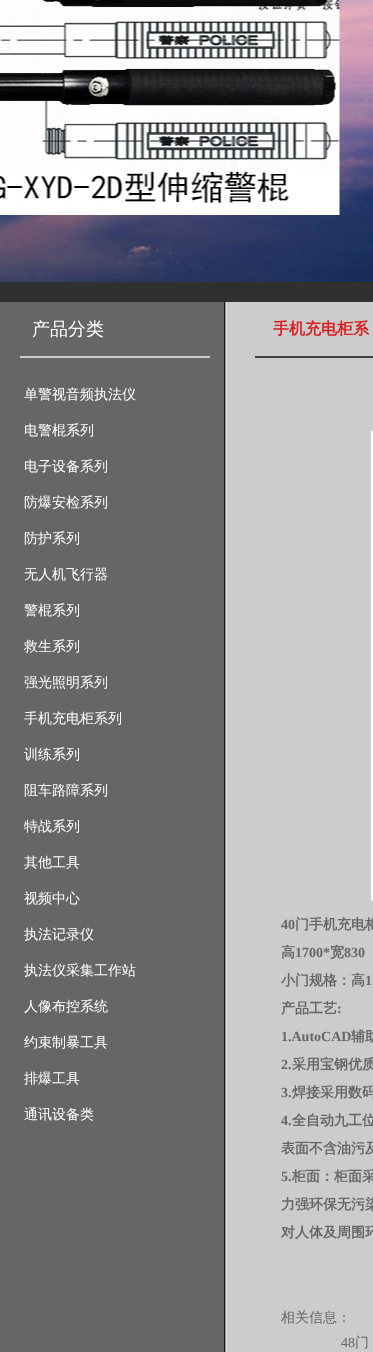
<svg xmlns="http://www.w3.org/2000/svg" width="373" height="1352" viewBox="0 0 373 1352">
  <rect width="100%" height="100%" fill="#303030"/>
  <image x="0" y="0" width="373" height="282" href="img1.png"/>
  <image x="0" y="302" width="373" height="1050" href="img2.png"/>
  <rect x="20" y="356" width="190" height="2" fill="#cccccc"/>
  <text x="32" y="335" font-family="WenQuanYi Zen Hei" font-size="18" font-weight="500" fill="#ffffff">产品分类</text>
  <text x="24" y="399" font-family="WenQuanYi Zen Hei" font-size="14" font-weight="500" fill="#ffffff">单警视音频执法仪</text>
  <text x="24" y="435" font-family="WenQuanYi Zen Hei" font-size="14" font-weight="500" fill="#ffffff">电警棍系列</text>
  <text x="24" y="471" font-family="WenQuanYi Zen Hei" font-size="14" font-weight="500" fill="#ffffff">电子设备系列</text>
  <text x="24" y="507" font-family="WenQuanYi Zen Hei" font-size="14" font-weight="500" fill="#ffffff">防爆安检系列</text>
  <text x="24" y="543" font-family="WenQuanYi Zen Hei" font-size="14" font-weight="500" fill="#ffffff">防护系列</text>
  <text x="24" y="579" font-family="WenQuanYi Zen Hei" font-size="14" font-weight="500" fill="#ffffff">无人机飞行器</text>
  <text x="24" y="615" font-family="WenQuanYi Zen Hei" font-size="14" font-weight="500" fill="#ffffff">警棍系列</text>
  <text x="24" y="651" font-family="WenQuanYi Zen Hei" font-size="14" font-weight="500" fill="#ffffff">救生系列</text>
  <text x="24" y="687" font-family="WenQuanYi Zen Hei" font-size="14" font-weight="500" fill="#ffffff">强光照明系列</text>
  <text x="24" y="723" font-family="WenQuanYi Zen Hei" font-size="14" font-weight="500" fill="#ffffff">手机充电柜系列</text>
  <text x="24" y="759" font-family="WenQuanYi Zen Hei" font-size="14" font-weight="500" fill="#ffffff">训练系列</text>
  <text x="24" y="795" font-family="WenQuanYi Zen Hei" font-size="14" font-weight="500" fill="#ffffff">阻车路障系列</text>
  <text x="24" y="831" font-family="WenQuanYi Zen Hei" font-size="14" font-weight="500" fill="#ffffff">特战系列</text>
  <text x="24" y="867" font-family="WenQuanYi Zen Hei" font-size="14" font-weight="500" fill="#ffffff">其他工具</text>
  <text x="24" y="903" font-family="WenQuanYi Zen Hei" font-size="14" font-weight="500" fill="#ffffff">视频中心</text>
  <text x="24" y="939" font-family="WenQuanYi Zen Hei" font-size="14" font-weight="500" fill="#ffffff">执法记录仪</text>
  <text x="24" y="975" font-family="WenQuanYi Zen Hei" font-size="14" font-weight="500" fill="#ffffff">执法仪采集工作站</text>
  <text x="24" y="1011" font-family="WenQuanYi Zen Hei" font-size="14" font-weight="500" fill="#ffffff">人像布控系统</text>
  <text x="24" y="1047" font-family="WenQuanYi Zen Hei" font-size="14" font-weight="500" fill="#ffffff">约束制暴工具</text>
  <text x="24" y="1083" font-family="WenQuanYi Zen Hei" font-size="14" font-weight="500" fill="#ffffff">排爆工具</text>
  <text x="24" y="1119" font-family="WenQuanYi Zen Hei" font-size="14" font-weight="500" fill="#ffffff">通讯设备类</text>
  <rect x="255" y="356" width="118" height="2" fill="#414141"/>
  <text x="273" y="334" font-family="WenQuanYi Zen Hei" font-size="16" font-weight="bold" fill="#da1e1e">手机充电柜系</text>
  <rect x="371" y="431" width="2" height="470" fill="#ffffff"/>
  <text x="281" y="929" font-family="Liberation Serif" font-size="14" font-weight="bold" fill="#666666">40</text>
  <text x="295" y="929" font-family="WenQuanYi Zen Hei" font-size="14" font-weight="bold" fill="#666666">门手机充电柜</text>
  <text x="281" y="957" font-family="WenQuanYi Zen Hei" font-size="14" font-weight="bold" fill="#666666">高</text>
  <text x="295" y="957" font-family="Liberation Serif" font-size="14" font-weight="bold" fill="#666666">1700*</text>
  <text x="330" y="957" font-family="WenQuanYi Zen Hei" font-size="14" font-weight="bold" fill="#666666">宽</text>
  <text x="344" y="957" font-family="Liberation Serif" font-size="14" font-weight="bold" fill="#666666">830</text>
  <text x="281" y="985" font-family="WenQuanYi Zen Hei" font-size="14" font-weight="bold" fill="#666666">小门规格：高</text>
  <text x="365" y="985" font-family="Liberation Serif" font-size="14" font-weight="bold" fill="#666666">1</text>
  <text x="281" y="1013" font-family="WenQuanYi Zen Hei" font-size="14" font-weight="bold" fill="#666666">产品工艺</text>
  <text x="337" y="1013" font-family="Liberation Serif" font-size="14" font-weight="bold" fill="#666666">:</text>
  <text x="281" y="1041" font-family="Liberation Serif" font-size="14" font-weight="bold" fill="#666666">1.AutoCAD</text>
  <text x="351" y="1041" font-family="WenQuanYi Zen Hei" font-size="14" font-weight="bold" fill="#666666">辅助</text>
  <text x="281" y="1069" font-family="Liberation Serif" font-size="14" font-weight="bold" fill="#666666">2.</text>
  <text x="292" y="1069" font-family="WenQuanYi Zen Hei" font-size="14" font-weight="bold" fill="#666666">采用宝钢优质</text>
  <text x="281" y="1097" font-family="Liberation Serif" font-size="14" font-weight="bold" fill="#666666">3.</text>
  <text x="292" y="1097" font-family="WenQuanYi Zen Hei" font-size="14" font-weight="bold" fill="#666666">焊接采用数码</text>
  <text x="281" y="1125" font-family="Liberation Serif" font-size="14" font-weight="bold" fill="#666666">4.</text>
  <text x="292" y="1125" font-family="WenQuanYi Zen Hei" font-size="14" font-weight="bold" fill="#666666">全自动九工位</text>
  <text x="281" y="1153" font-family="WenQuanYi Zen Hei" font-size="14" font-weight="bold" fill="#666666">表面不含油污及</text>
  <text x="281" y="1181" font-family="Liberation Serif" font-size="14" font-weight="bold" fill="#666666">5.</text>
  <text x="292" y="1181" font-family="WenQuanYi Zen Hei" font-size="14" font-weight="bold" fill="#666666">柜面：柜面采</text>
  <text x="281" y="1209" font-family="WenQuanYi Zen Hei" font-size="14" font-weight="bold" fill="#666666">力强环保无污染</text>
  <text x="281" y="1237" font-family="WenQuanYi Zen Hei" font-size="14" font-weight="bold" fill="#666666">对人体及周围环</text>
  <text x="281" y="1322" font-family="WenQuanYi Zen Hei" font-size="14" font-weight="500" fill="#666666">相关信息：</text>
  <text x="341" y="1347" font-family="Liberation Serif" font-size="14" fill="#666666">48</text>
  <text x="355" y="1347" font-family="WenQuanYi Zen Hei" font-size="14" font-weight="500" fill="#666666">门</text>
</svg>
